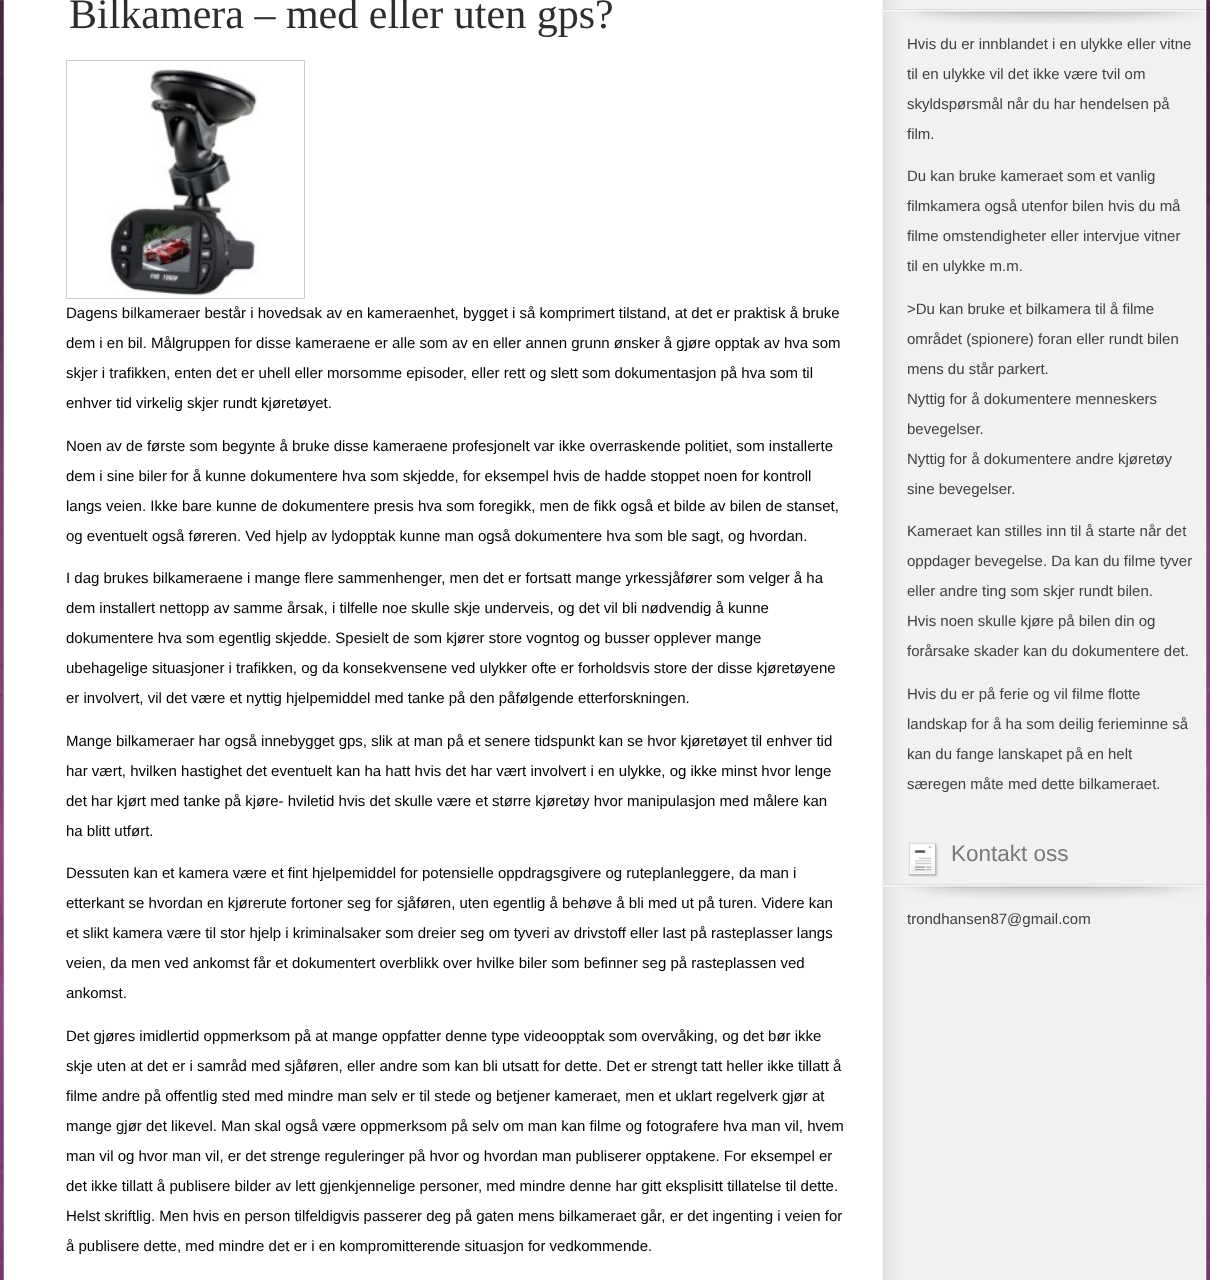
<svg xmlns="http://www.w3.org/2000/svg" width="1210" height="1280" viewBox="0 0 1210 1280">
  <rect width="100%" height="100%" fill="#ffffff"/>
  <image x="0" y="0" width="1210" height="1280" href="img1.png"/>
  <image x="3" y="0" width="1204" height="1280" href="img2.png"/>
  <text x="69" y="28" font-family="Liberation Serif" font-size="42" fill="#2d2d2d">Bilkamera – med eller uten gps?</text>
  <rect x="66.5" y="60.5" width="238" height="238" fill="none" stroke="#cccccc"/>
  <image x="110" y="65" width="150" height="231" href="img3.png"/>
  <text x="66" y="318" font-family="Liberation Sans" font-size="15" fill="#000000">Dagens bilkameraer består i hovedsak av en kameraenhet, bygget i så komprimert tilstand, at det er praktisk å bruke</text>
  <text x="66" y="348" font-family="Liberation Sans" font-size="15" fill="#000000">dem i en bil. Målgruppen for disse kameraene er alle som av en eller annen grunn ønsker å gjøre opptak av hva som</text>
  <text x="66" y="378" font-family="Liberation Sans" font-size="15" fill="#000000">skjer i trafikken, enten det er uhell eller morsomme episoder, eller rett og slett som dokumentasjon på hva som til</text>
  <text x="66" y="408" font-family="Liberation Sans" font-size="15" fill="#000000">enhver tid virkelig skjer rundt kjøretøyet.</text>
  <text x="66" y="451" font-family="Liberation Sans" font-size="15" fill="#000000">Noen av de første som begynte å bruke disse kameraene profesjonelt var ikke overraskende politiet, som installerte</text>
  <text x="66" y="481" font-family="Liberation Sans" font-size="15" fill="#000000">dem i sine biler for å kunne dokumentere hva som skjedde, for eksempel hvis de hadde stoppet noen for kontroll</text>
  <text x="66" y="511" font-family="Liberation Sans" font-size="15" fill="#000000">langs veien. Ikke bare kunne de dokumentere presis hva som foregikk, men de fikk også et bilde av bilen de stanset,</text>
  <text x="66" y="541" font-family="Liberation Sans" font-size="15" fill="#000000">og eventuelt også føreren. Ved hjelp av lydopptak kunne man også dokumentere hva som ble sagt, og hvordan.</text>
  <text x="66" y="583" font-family="Liberation Sans" font-size="15" fill="#000000">I dag brukes bilkameraene i mange flere sammenhenger, men det er fortsatt mange yrkessjåfører som velger å ha</text>
  <text x="66" y="613" font-family="Liberation Sans" font-size="15" fill="#000000">dem installert nettopp av samme årsak, i tilfelle noe skulle skje underveis, og det vil bli nødvendig å kunne</text>
  <text x="66" y="643" font-family="Liberation Sans" font-size="15" fill="#000000">dokumentere hva som egentlig skjedde. Spesielt de som kjører store vogntog og busser opplever mange</text>
  <text x="66" y="673" font-family="Liberation Sans" font-size="15" fill="#000000">ubehagelige situasjoner i trafikken, og da konsekvensene ved ulykker ofte er forholdsvis store der disse kjøretøyene</text>
  <text x="66" y="703" font-family="Liberation Sans" font-size="15" fill="#000000">er involvert, vil det være et nyttig hjelpemiddel med tanke på den påfølgende etterforskningen.</text>
  <text x="66" y="746" font-family="Liberation Sans" font-size="15" fill="#000000">Mange bilkameraer har også innebygget gps, slik at man på et senere tidspunkt kan se hvor kjøretøyet til enhver tid</text>
  <text x="66" y="776" font-family="Liberation Sans" font-size="15" fill="#000000">har vært, hvilken hastighet det eventuelt kan ha hatt hvis det har vært involvert i en ulykke, og ikke minst hvor lenge</text>
  <text x="66" y="806" font-family="Liberation Sans" font-size="15" fill="#000000">det har kjørt med tanke på kjøre- hviletid hvis det skulle være et større kjøretøy hvor manipulasjon med målere kan</text>
  <text x="66" y="836" font-family="Liberation Sans" font-size="15" fill="#000000">ha blitt utført.</text>
  <text x="66" y="878" font-family="Liberation Sans" font-size="15" fill="#000000">Dessuten kan et kamera være et fint hjelpemiddel for potensielle oppdragsgivere og ruteplanleggere, da man i</text>
  <text x="66" y="908" font-family="Liberation Sans" font-size="15" fill="#000000">etterkant se hvordan en kjørerute fortoner seg for sjåføren, uten egentlig å behøve å bli med ut på turen. Videre kan</text>
  <text x="66" y="938" font-family="Liberation Sans" font-size="15" fill="#000000">et slikt kamera være til stor hjelp i kriminalsaker som dreier seg om tyveri av drivstoff eller last på rasteplasser langs</text>
  <text x="66" y="968" font-family="Liberation Sans" font-size="15" fill="#000000">veien, da men ved ankomst får et dokumentert overblikk over hvilke biler som befinner seg på rasteplassen ved</text>
  <text x="66" y="998" font-family="Liberation Sans" font-size="15" fill="#000000">ankomst.</text>
  <text x="66" y="1041" font-family="Liberation Sans" font-size="15" fill="#000000">Det gjøres imidlertid oppmerksom på at mange oppfatter denne type videoopptak som overvåking, og det bør ikke</text>
  <text x="66" y="1071" font-family="Liberation Sans" font-size="15" fill="#000000">skje uten at det er i samråd med sjåføren, eller andre som kan bli utsatt for dette. Det er strengt tatt heller ikke tillatt å</text>
  <text x="66" y="1101" font-family="Liberation Sans" font-size="15" fill="#000000">filme andre på offentlig sted med mindre man selv er til stede og betjener kameraet, men et uklart regelverk gjør at</text>
  <text x="66" y="1131" font-family="Liberation Sans" font-size="15" fill="#000000">mange gjør det likevel. Man skal også være oppmerksom på selv om man kan filme og fotografere hva man vil, hvem</text>
  <text x="66" y="1161" font-family="Liberation Sans" font-size="15" fill="#000000">man vil og hvor man vil, er det strenge reguleringer på hvor og hvordan man publiserer opptakene. For eksempel er</text>
  <text x="66" y="1191" font-family="Liberation Sans" font-size="15" fill="#000000">det ikke tillatt å publisere bilder av lett gjenkjennelige personer, med mindre denne har gitt eksplisitt tillatelse til dette.</text>
  <text x="66" y="1221" font-family="Liberation Sans" font-size="15" fill="#000000">Helst skriftlig. Men hvis en person tilfeldigvis passerer deg på gaten mens bilkameraet går, er det ingenting i veien for</text>
  <text x="66" y="1251" font-family="Liberation Sans" font-size="15" fill="#000000">å publisere dette, med mindre det er i en kompromitterende situasjon for vedkommende.</text>
  <image x="882" y="9" width="323" height="15" href="img4.png"/>
  <text x="907" y="49" font-family="Liberation Sans" font-size="15" fill="#404040">Hvis du er innblandet i en ulykke eller vitne</text>
  <text x="907" y="79" font-family="Liberation Sans" font-size="15" fill="#404040">til en ulykke vil det ikke være tvil om</text>
  <text x="907" y="109" font-family="Liberation Sans" font-size="15" fill="#404040">skyldspørsmål når du har hendelsen på</text>
  <text x="907" y="139" font-family="Liberation Sans" font-size="15" fill="#404040">film.</text>
  <text x="907" y="181" font-family="Liberation Sans" font-size="15" fill="#404040">Du kan bruke kameraet som et vanlig</text>
  <text x="907" y="211" font-family="Liberation Sans" font-size="15" fill="#404040">filmkamera også utenfor bilen hvis du må</text>
  <text x="907" y="241" font-family="Liberation Sans" font-size="15" fill="#404040">filme omstendigheter eller intervjue vitner</text>
  <text x="907" y="271" font-family="Liberation Sans" font-size="15" fill="#404040">til en ulykke m.m.</text>
  <text x="907" y="314" font-family="Liberation Sans" font-size="15" fill="#404040">&gt;Du kan bruke et bilkamera til å filme</text>
  <text x="907" y="344" font-family="Liberation Sans" font-size="15" fill="#404040">området (spionere) foran eller rundt bilen</text>
  <text x="907" y="374" font-family="Liberation Sans" font-size="15" fill="#404040">mens du står parkert.</text>
  <text x="907" y="404" font-family="Liberation Sans" font-size="15" fill="#404040">Nyttig for å dokumentere menneskers</text>
  <text x="907" y="434" font-family="Liberation Sans" font-size="15" fill="#404040">bevegelser.</text>
  <text x="907" y="464" font-family="Liberation Sans" font-size="15" fill="#404040">Nyttig for å dokumentere andre kjøretøy</text>
  <text x="907" y="494" font-family="Liberation Sans" font-size="15" fill="#404040">sine bevegelser.</text>
  <text x="907" y="536" font-family="Liberation Sans" font-size="15" fill="#404040">Kameraet kan stilles inn til å starte når det</text>
  <text x="907" y="566" font-family="Liberation Sans" font-size="15" fill="#404040">oppdager bevegelse. Da kan du filme tyver</text>
  <text x="907" y="596" font-family="Liberation Sans" font-size="15" fill="#404040">eller andre ting som skjer rundt bilen.</text>
  <text x="907" y="626" font-family="Liberation Sans" font-size="15" fill="#404040">Hvis noen skulle kjøre på bilen din og</text>
  <text x="907" y="656" font-family="Liberation Sans" font-size="15" fill="#404040">forårsake skader kan du dokumentere det.</text>
  <text x="907" y="699" font-family="Liberation Sans" font-size="15" fill="#404040">Hvis du er på ferie og vil filme flotte</text>
  <text x="907" y="729" font-family="Liberation Sans" font-size="15" fill="#404040">landskap for å ha som deilig ferieminne så</text>
  <text x="907" y="759" font-family="Liberation Sans" font-size="15" fill="#404040">kan du fange lanskapet på en helt</text>
  <text x="907" y="789" font-family="Liberation Sans" font-size="15" fill="#404040">særegen måte med dette bilkameraet.</text>
  <image x="908" y="842" width="31" height="35" href="img5.png"/>
  <text x="951" y="861" font-family="Liberation Sans" font-size="22.5" fill="#7a7979">Kontakt oss</text>
  <image x="882" y="884" width="323" height="15" href="img4.png"/>
  <text x="907" y="924" font-family="Liberation Sans" font-size="15" fill="#404040">trondhansen87@gmail.com</text>
</svg>
